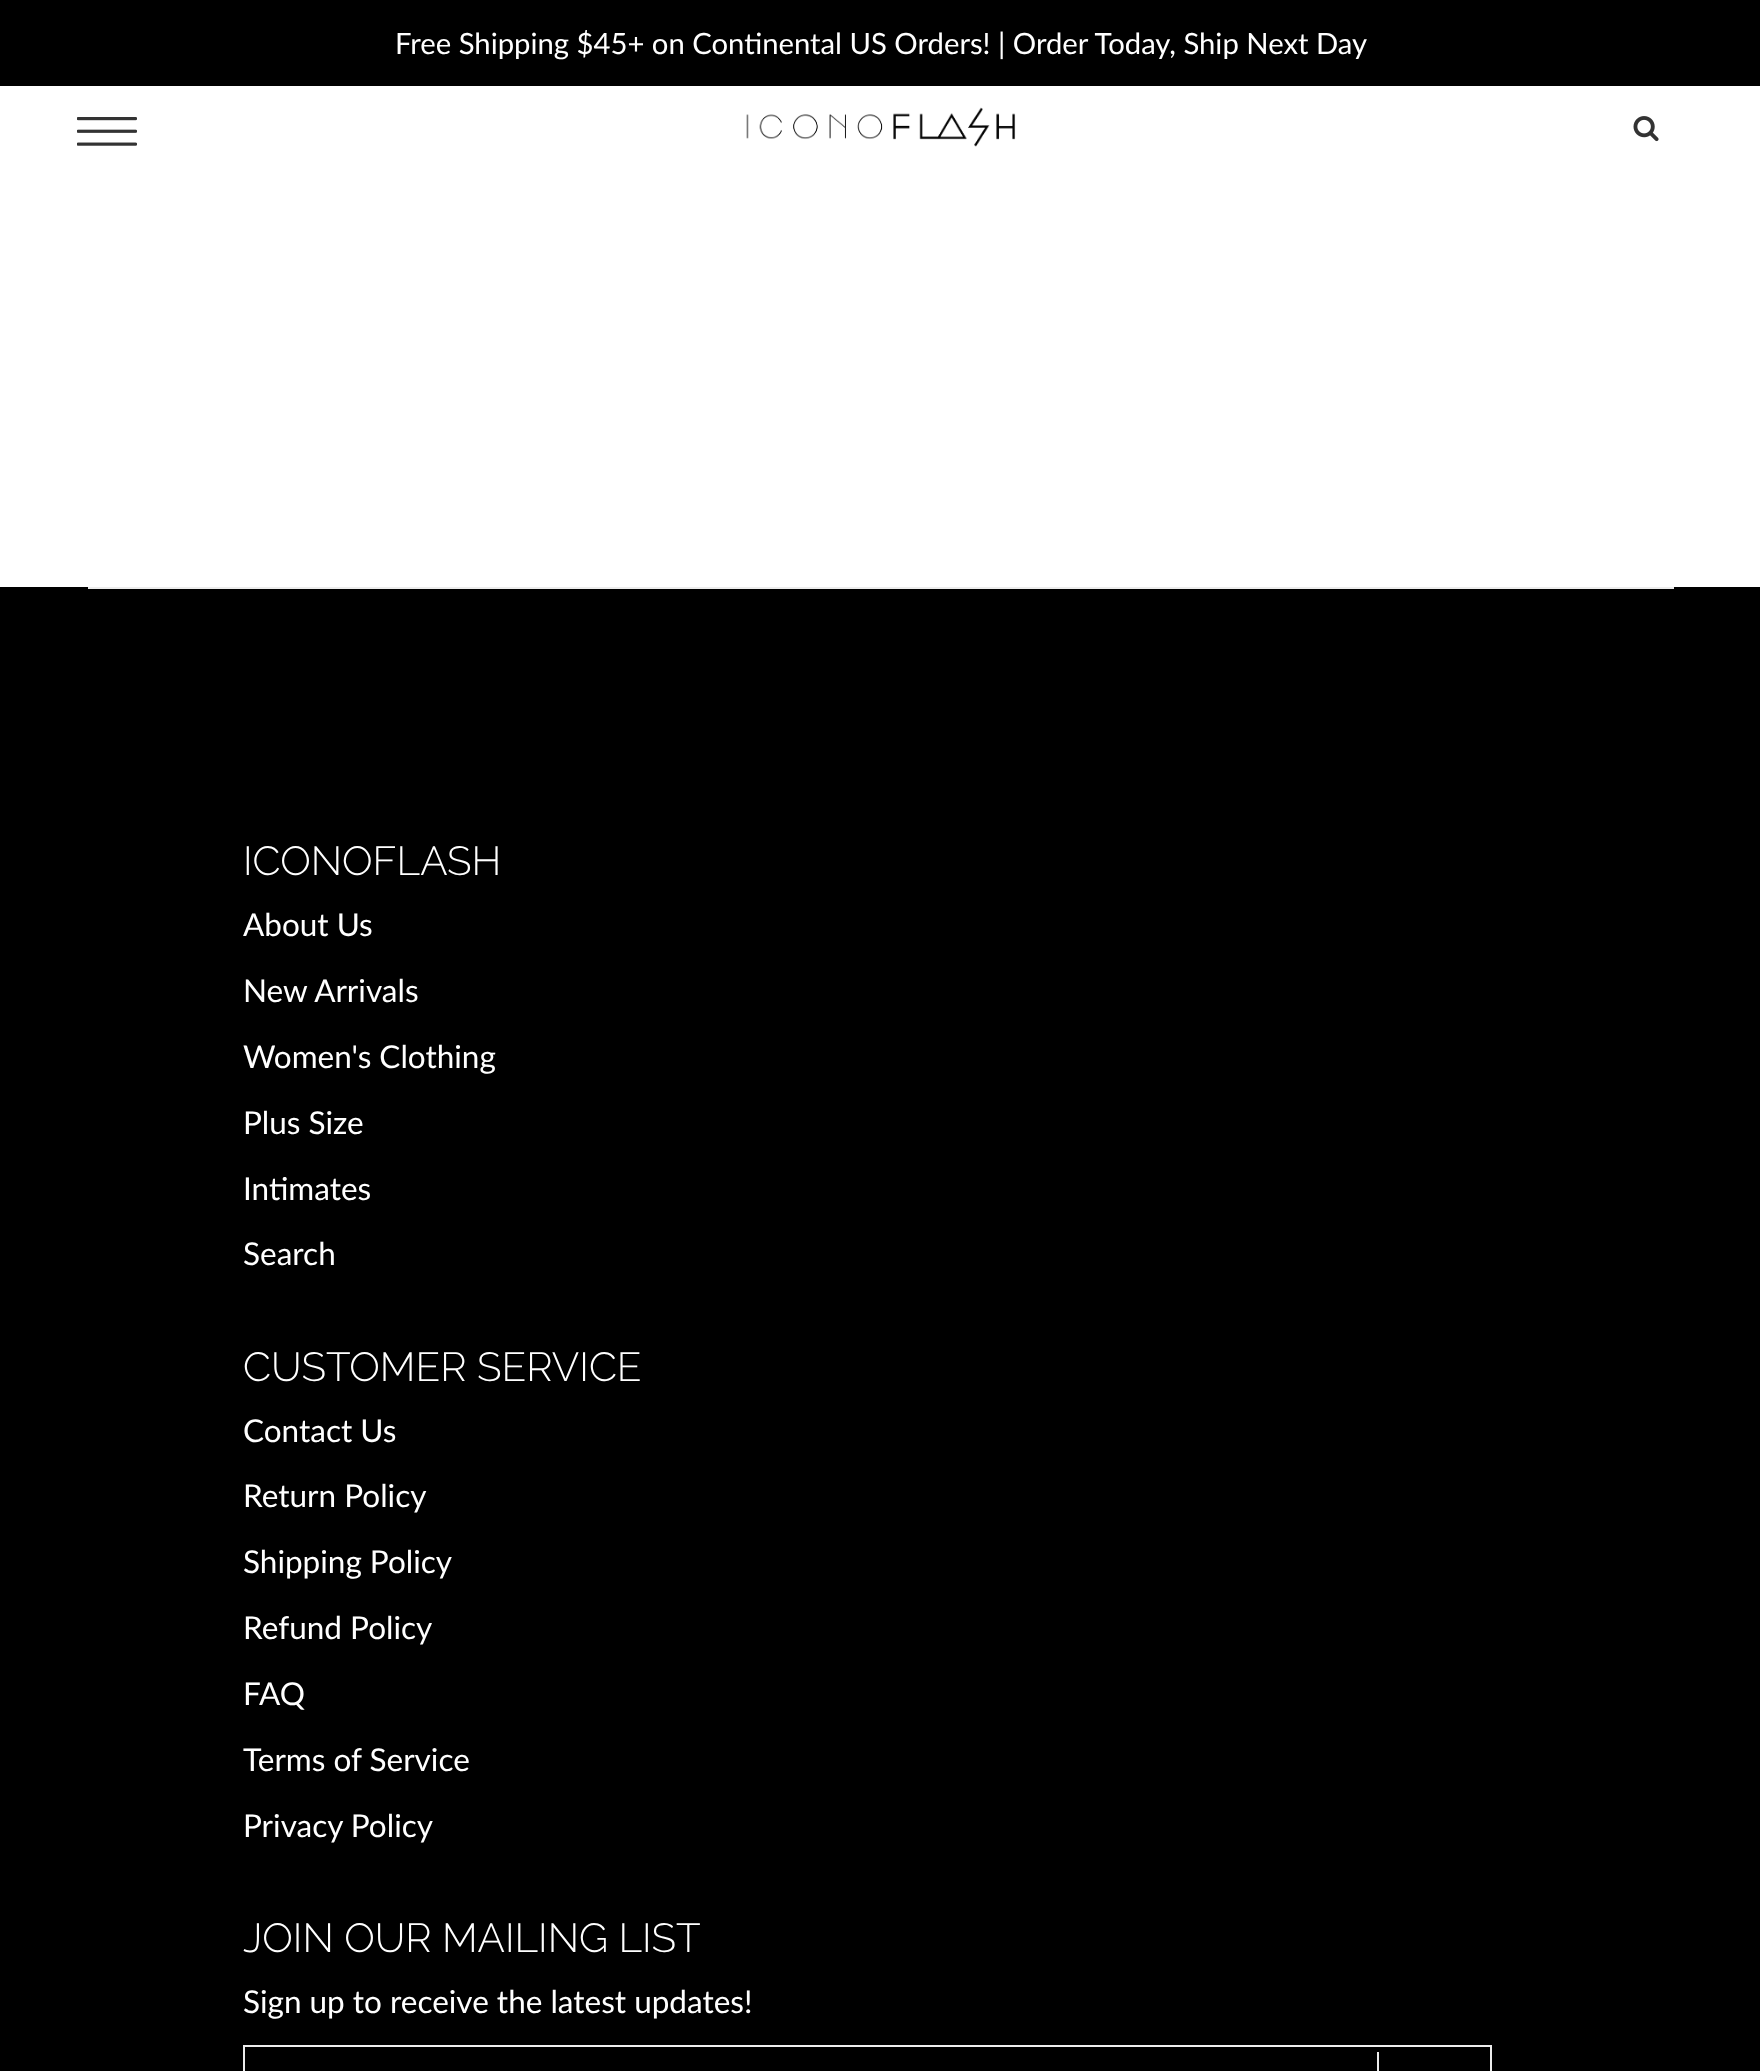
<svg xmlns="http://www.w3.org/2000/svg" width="1760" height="2071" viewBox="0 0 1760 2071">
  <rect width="100%" height="100%" fill="#ffffff"/>
  <rect x="0" y="0" width="1760" height="86" fill="#000000"/>
  <text x="395" y="54" font-family="Lato" font-size="29.25" fill="#ffffff">Free Shipping $45+ on Continental US Orders! | Order Today, Ship Next Day</text>
  <image x="77" y="117" width="60" height="29" href="img1.png"/>
  <image x="746" y="107" width="270" height="40" href="img2.png"/>
  <image x="1633" y="116" width="26" height="26" href="img3.png"/>
  <rect x="0" y="587" width="1760" height="1484" fill="#000000"/>
  <rect x="88" y="587" width="1586" height="2" fill="#ececec"/>
  <text x="243" y="875" font-family="Raleway" font-size="40.5" font-weight="300" fill="#ffffff">ICONOFLASH</text>
  <text x="243" y="936" font-family="Lato" font-size="31.5" fill="#ffffff">About Us</text>
  <text x="243" y="1002" font-family="Lato" font-size="31.5" fill="#ffffff">New Arrivals</text>
  <text x="243" y="1068" font-family="Lato" font-size="31.5" fill="#ffffff">Women's Clothing</text>
  <text x="243" y="1134" font-family="Lato" font-size="31.5" fill="#ffffff">Plus Size</text>
  <text x="243" y="1200" font-family="Lato" font-size="31.5" fill="#ffffff">Intimates</text>
  <text x="243" y="1265" font-family="Lato" font-size="31.5" fill="#ffffff">Search</text>
  <text x="243" y="1381" font-family="Raleway" font-size="40.5" font-weight="300" fill="#ffffff">CUSTOMER SERVICE</text>
  <text x="243" y="1442" font-family="Lato" font-size="31.5" fill="#ffffff">Contact Us</text>
  <text x="243" y="1507" font-family="Lato" font-size="31.5" fill="#ffffff">Return Policy</text>
  <text x="243" y="1573" font-family="Lato" font-size="31.5" fill="#ffffff">Shipping Policy</text>
  <text x="243" y="1639" font-family="Lato" font-size="31.5" fill="#ffffff">Refund Policy</text>
  <text x="243" y="1705" font-family="Lato" font-size="31.5" fill="#ffffff">FAQ</text>
  <text x="243" y="1771" font-family="Lato" font-size="31.5" fill="#ffffff">Terms of Service</text>
  <text x="243" y="1837" font-family="Lato" font-size="31.5" fill="#ffffff">Privacy Policy</text>
  <text x="243" y="1952" font-family="Raleway" font-size="40.5" font-weight="300" fill="#ffffff">JOIN OUR MAILING LIST</text>
  <text x="243" y="2013" font-family="Lato" font-size="31.5" fill="#ffffff">Sign up to receive the latest updates!</text>
  <rect x="244" y="2046" width="1247" height="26" fill="none" stroke="#ececec" stroke-width="2"/>
  <rect x="1377" y="2052" width="2" height="19" fill="#ececec"/>
</svg>
